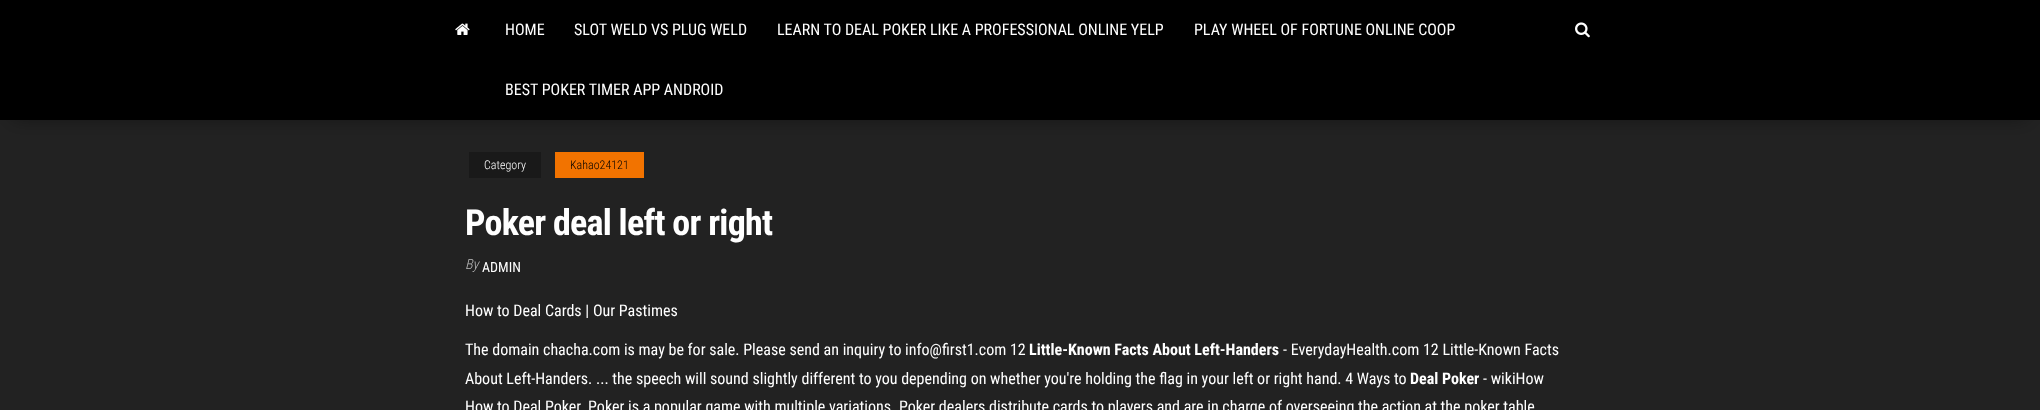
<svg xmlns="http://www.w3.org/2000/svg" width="2040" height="410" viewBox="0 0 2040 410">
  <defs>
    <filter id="blur1" x="-50%" y="-200%" width="200%" height="500%"><feGaussianBlur stdDeviation="10"/></filter>
  </defs>
  <rect width="100%" height="100%" fill="#222222"/>
  <rect x="12" y="22" width="2016" height="96" fill="#000000" fill-opacity="0.42" filter="url(#blur1)"/>
  <rect x="0" y="0" width="2040" height="120" fill="#000000"/>
  <image x="455" y="23" width="15" height="12" href="img1.png"/>
  <text x="505" y="35" font-family="Roboto Condensed" font-size="16" fill="#ffffff">HOME</text>
  <text x="574" y="35" font-family="Roboto Condensed" font-size="16" fill="#ffffff">SLOT WELD VS PLUG WELD</text>
  <text x="777" y="35" font-family="Roboto Condensed" font-size="16" fill="#ffffff">LEARN TO DEAL POKER LIKE A PROFESSIONAL ONLINE YELP</text>
  <text x="1194" y="35" font-family="Roboto Condensed" font-size="16" fill="#ffffff">PLAY WHEEL OF FORTUNE ONLINE COOP</text>
  <text x="505" y="95" font-family="Roboto Condensed" font-size="16" fill="#ffffff">BEST POKER TIMER APP ANDROID</text>
  <image x="1575" y="22" width="15" height="16" href="img2.png"/>
  <rect x="469" y="152" width="72" height="26" fill="#191919"/>
  <text x="484" y="169" font-family="Roboto Condensed" font-size="12" font-weight="300" fill="#ffffff">Category</text>
  <rect x="555" y="152" width="89" height="26" fill="#f27300"/>
  <text x="570" y="169" font-family="Roboto Condensed" font-size="12" font-weight="300" fill="#000000">Kahao24121</text>
  <text x="465" y="235" font-family="Roboto Condensed" font-size="36" font-weight="bold" letter-spacing="-0.75" fill="#ffffff">Poker deal left or right</text>
  <text x="465" y="269" font-family="Roboto Condensed" font-size="14" font-weight="300" font-style="italic" fill="#bdbdbd">By</text>
  <text x="482" y="272" font-family="Roboto Condensed" font-size="14" fill="#ffffff">ADMIN</text>
  <text x="465" y="316" font-family="Roboto Condensed" font-size="16" fill="#ffffff">How to Deal Cards | Our Pastimes</text>
  <text x="465" y="355" font-family="Roboto Condensed" font-size="16" fill="#ffffff">The domain chacha.com is may be for sale. Please send an inquiry to info@first1.com 12</text>
  <text x="1029" y="355" font-family="Roboto Condensed" font-size="16" font-weight="bold" fill="#ffffff">Little-Known Facts About Left-Handers</text>
  <text x="1283" y="355" font-family="Roboto Condensed" font-size="16" fill="#ffffff">- EverydayHealth.com 12 Little-Known Facts</text>
  <text x="465" y="384" font-family="Roboto Condensed" font-size="16" fill="#ffffff">About Left-Handers. ... the speech will sound slightly different to you depending on whether you're holding the flag in your left or right hand. 4 Ways to</text>
  <text x="1410" y="384" font-family="Roboto Condensed" font-size="16" font-weight="bold" fill="#ffffff">Deal Poker</text>
  <text x="1483" y="384" font-family="Roboto Condensed" font-size="16" fill="#ffffff">- wikiHow</text>
  <text x="465" y="412" font-family="Roboto Condensed" font-size="16" fill="#ffffff">How to Deal Poker. Poker is a popular game with multiple variations. Poker dealers distribute cards to players and are in charge of overseeing the action at the poker table</text>
</svg>
